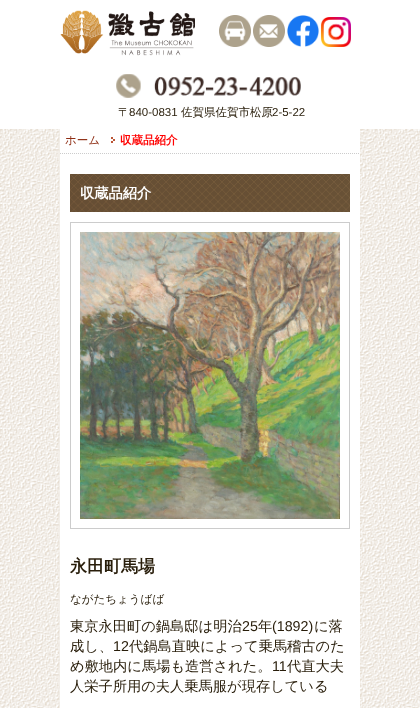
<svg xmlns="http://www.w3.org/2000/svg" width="420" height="708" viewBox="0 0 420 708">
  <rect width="100%" height="100%" fill="#ffffff"/>
  <image x="60" y="10" width="135" height="46" href="img1.png"/>
  <image x="219" y="15" width="32" height="32" href="img2.png"/>
  <image x="253" y="15" width="32" height="32" href="img3.png"/>
  <image x="287" y="15" width="32" height="32" href="img4.png"/>
  <image x="321" y="17" width="30" height="30" href="img5.png"/>
  <image x="116" y="74" width="185" height="24" href="img6.png"/>
  <text x="118" y="116" font-family="WenQuanYi Zen Hei" font-size="11.5" font-weight="500" fill="#281d0a">〒</text>
  <text x="129" y="116" font-family="Liberation Sans" font-size="11.5" fill="#281d0a">840-0831</text>
  <text x="181" y="116" font-family="WenQuanYi Zen Hei" font-size="11.5" font-weight="500" fill="#281d0a">佐賀県佐賀市松原</text>
  <text x="272" y="116" font-family="Liberation Sans" font-size="11.5" fill="#281d0a">2-5-22</text>
  <image x="0" y="129" width="420" height="579" href="img7.png"/>
  <rect x="60" y="129" width="300" height="579" fill="#ffffff"/>
  <path d="M60 153.5H360" fill="none" stroke="#cccccc" stroke-dasharray="1 1"/>
  <text x="65" y="144" font-family="WenQuanYi Zen Hei" font-size="11.5" font-weight="500" fill="#8f2e14">ホーム</text>
  <image x="111" y="137" width="4" height="6" href="img8.png"/>
  <text x="120" y="144" font-family="WenQuanYi Zen Hei" font-size="11.5" font-weight="bold" fill="#ff0000">収蔵品紹介</text>
  <image x="70" y="174" width="280" height="38" href="img9.png"/>
  <text x="80" y="198" font-family="WenQuanYi Zen Hei" font-size="14.25" font-weight="bold" fill="#ffffff">収蔵品紹介</text>
  <rect x="70.5" y="222.5" width="279" height="306" fill="none" stroke="#cccccc"/>
  <image x="80" y="232" width="260" height="287" href="img10.png"/>
  <text x="70" y="572" font-family="WenQuanYi Zen Hei" font-size="17" font-weight="bold" fill="#281d0a">永田町馬場</text>
  <text x="70" y="603" font-family="WenQuanYi Zen Hei" font-size="11.5" font-weight="500" fill="#281d0a">ながたちょうばば</text>
  <text x="70" y="631" font-family="WenQuanYi Zen Hei" font-size="14.25" font-weight="500" fill="#281d0a">東京永田町の鍋島邸は明治</text>
  <text x="242" y="631" font-family="Liberation Sans" font-size="14.25" fill="#281d0a">25</text>
  <text x="258" y="631" font-family="WenQuanYi Zen Hei" font-size="14.25" font-weight="500" fill="#281d0a">年</text>
  <text x="272" y="631" font-family="Liberation Sans" font-size="14.25" fill="#281d0a">(1892)</text>
  <text x="314" y="631" font-family="WenQuanYi Zen Hei" font-size="14.25" font-weight="500" fill="#281d0a">に落</text>
  <text x="70" y="651" font-family="WenQuanYi Zen Hei" font-size="14.25" font-weight="500" fill="#281d0a">成し、</text>
  <text x="113" y="651" font-family="Liberation Sans" font-size="14.25" fill="#281d0a">12</text>
  <text x="129" y="651" font-family="WenQuanYi Zen Hei" font-size="14.25" font-weight="500" fill="#281d0a">代鍋島直映によって乗馬稽古のた</text>
  <text x="70" y="671" font-family="WenQuanYi Zen Hei" font-size="14.25" font-weight="500" fill="#281d0a">め敷地内に馬場も造営された。</text>
  <text x="272" y="671" font-family="Liberation Sans" font-size="14.25" fill="#281d0a">11</text>
  <text x="287" y="671" font-family="WenQuanYi Zen Hei" font-size="14.25" font-weight="500" fill="#281d0a">代直大夫</text>
  <text x="70" y="691" font-family="WenQuanYi Zen Hei" font-size="14.25" font-weight="500" fill="#281d0a">人栄子所用の夫人乗馬服が現存している</text>
</svg>
